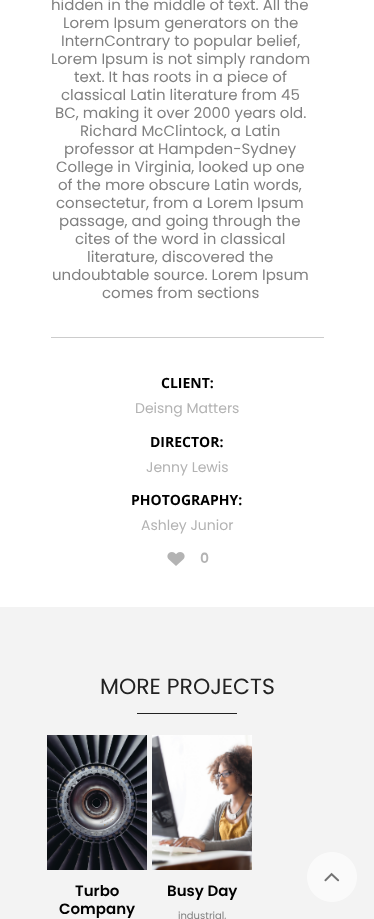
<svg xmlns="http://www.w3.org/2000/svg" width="374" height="919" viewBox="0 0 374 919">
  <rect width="100%" height="100%" fill="#ffffff"/>
  <text x="51" y="10" font-family="Poppins" font-size="15" fill="#808080">hidden in the middle of text. All the</text>
  <text x="63" y="28" font-family="Poppins" font-size="15" fill="#808080">Lorem Ipsum generators on the</text>
  <text x="61" y="46" font-family="Poppins" font-size="15" fill="#808080">InternContrary to popular belief,</text>
  <text x="51" y="64" font-family="Poppins" font-size="15" fill="#808080">Lorem Ipsum is not simply random</text>
  <text x="74" y="82" font-family="Poppins" font-size="15" fill="#808080">text. It has roots in a piece of</text>
  <text x="61" y="100" font-family="Poppins" font-size="15" fill="#808080">classical Latin literature from 45</text>
  <text x="55" y="118" font-family="Poppins" font-size="15" fill="#808080">BC, making it over 2000 years old.</text>
  <text x="80" y="136" font-family="Poppins" font-size="15" fill="#808080">Richard McClintock, a Latin</text>
  <text x="64" y="154" font-family="Poppins" font-size="15" fill="#808080">professor at Hampden-Sydney</text>
  <text x="56" y="172" font-family="Poppins" font-size="15" fill="#808080">College in Virginia, looked up one</text>
  <text x="58" y="190" font-family="Poppins" font-size="15" fill="#808080">of the more obscure Latin words,</text>
  <text x="56" y="208" font-family="Poppins" font-size="15" fill="#808080">consectetur, from a Lorem Ipsum</text>
  <text x="59" y="226" font-family="Poppins" font-size="15" fill="#808080">passage, and going through the</text>
  <text x="75" y="244" font-family="Poppins" font-size="15" fill="#808080">cites of the word in classical</text>
  <text x="87" y="262" font-family="Poppins" font-size="15" fill="#808080">literature, discovered the</text>
  <text x="52" y="280" font-family="Poppins" font-size="15" fill="#808080">undoubtable source. Lorem Ipsum</text>
  <text x="102" y="298" font-family="Poppins" font-size="15" fill="#808080">comes from sections</text>
  <rect x="51" y="337" width="273" height="1" fill="#cccccc"/>
  <text x="161" y="388" font-family="Open Sans" font-size="14" font-weight="bold" fill="#000000">CLIENT:</text>
  <text x="135" y="413" font-family="Poppins" font-size="14" fill="#b3b3b3">Deisng Matters</text>
  <text x="150" y="447" font-family="Open Sans" font-size="14" font-weight="bold" fill="#000000">DIRECTOR:</text>
  <text x="146" y="472" font-family="Poppins" font-size="14" fill="#b3b3b3">Jenny Lewis</text>
  <text x="131" y="505" font-family="Open Sans" font-size="14" font-weight="bold" fill="#000000">PHOTOGRAPHY:</text>
  <text x="141" y="530" font-family="Poppins" font-size="14" fill="#b3b3b3">Ashley Junior</text>
  <image x="167" y="552" width="18" height="14" href="img1.png"/>
  <text x="200" y="563" font-family="Poppins" font-size="14" font-weight="600" fill="#b3b3b3">0</text>
  <rect x="0" y="607" width="374" height="312" fill="#f3f3f3"/>
  <text x="100" y="694" font-family="Poppins" font-size="22" fill="#222222">MORE PROJECTS</text>
  <rect x="137" y="713" width="100" height="1" fill="#222222"/>
  <image x="47" y="735" width="100" height="135" href="img2.png"/>
  <text x="75" y="896" font-family="Poppins" font-size="15" font-weight="600" fill="#000000">Turbo</text>
  <text x="59" y="914" font-family="Poppins" font-size="15" font-weight="600" fill="#000000">Company</text>
  <image x="152" y="735" width="100" height="135" href="img3.png"/>
  <text x="167" y="896" font-family="Poppins" font-size="15" font-weight="600" fill="#000000">Busy Day</text>
  <text x="178" y="919" font-family="Poppins" font-size="10" fill="#808080">industrial,</text>
  <image x="307" y="852" width="50" height="50" href="img4.png"/>
</svg>
